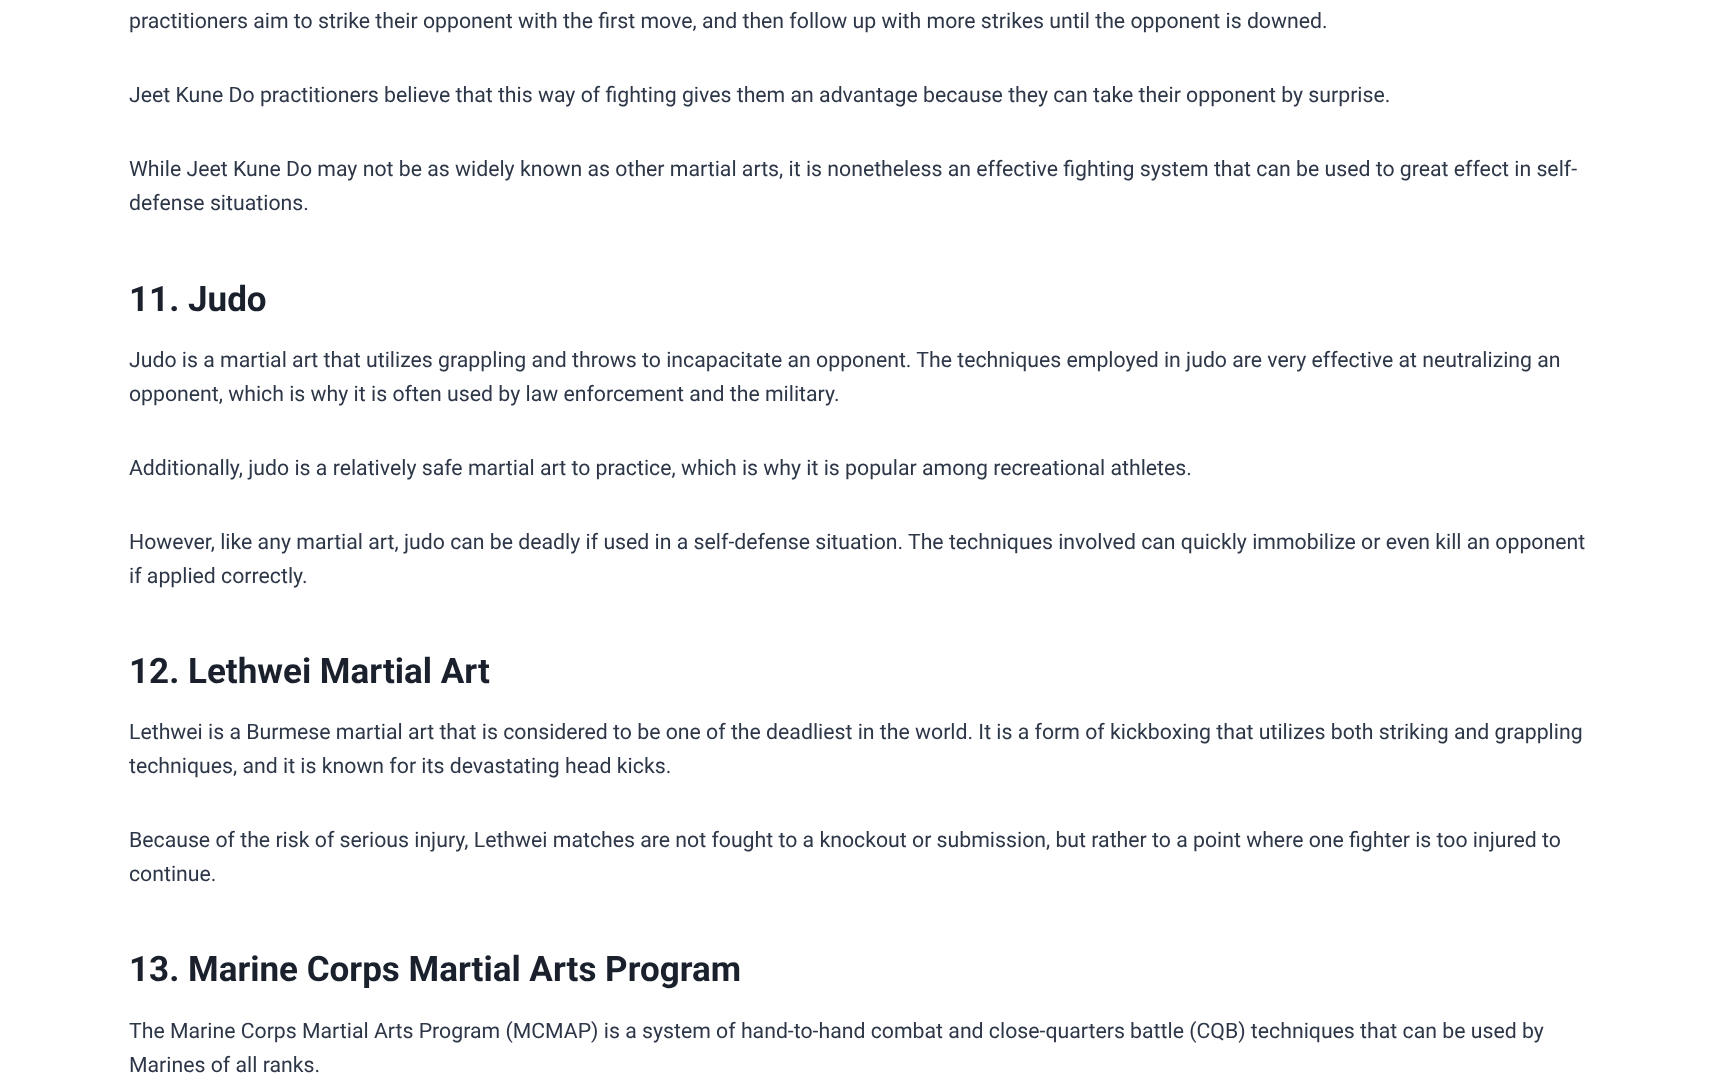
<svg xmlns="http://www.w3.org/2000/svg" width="1730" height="1076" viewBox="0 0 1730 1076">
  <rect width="100%" height="100%" fill="#ffffff"/>
  <text x="129" y="28" font-family="Roboto" font-size="21.25" fill="#2d3748">practitioners aim to strike their opponent with the first move, and then follow up with more strikes until the opponent is downed.</text>
  <text x="129" y="102" font-family="Roboto" font-size="21.25" fill="#2d3748">Jeet Kune Do practitioners believe that this way of fighting gives them an advantage because they can take their opponent by surprise.</text>
  <text x="129" y="176" font-family="Roboto" font-size="21.25" fill="#2d3748">While Jeet Kune Do may not be as widely known as other martial arts, it is nonetheless an effective fighting system that can be used to great effect in self-</text>
  <text x="129" y="210" font-family="Roboto" font-size="21.25" fill="#2d3748">defense situations.</text>
  <text x="129" y="311" font-family="Roboto" font-size="35" font-weight="bold" fill="#1a202c">11. Judo</text>
  <text x="129" y="367" font-family="Roboto" font-size="21.25" fill="#2d3748">Judo is a martial art that utilizes grappling and throws to incapacitate an opponent. The techniques employed in judo are very effective at neutralizing an</text>
  <text x="129" y="401" font-family="Roboto" font-size="21.25" fill="#2d3748">opponent, which is why it is often used by law enforcement and the military.</text>
  <text x="129" y="475" font-family="Roboto" font-size="21.25" fill="#2d3748">Additionally, judo is a relatively safe martial art to practice, which is why it is popular among recreational athletes.</text>
  <text x="129" y="549" font-family="Roboto" font-size="21.25" fill="#2d3748">However, like any martial art, judo can be deadly if used in a self-defense situation. The techniques involved can quickly immobilize or even kill an opponent</text>
  <text x="129" y="583" font-family="Roboto" font-size="21.25" fill="#2d3748">if applied correctly.</text>
  <text x="129" y="683" font-family="Roboto" font-size="35" font-weight="bold" fill="#1a202c">12. Lethwei Martial Art</text>
  <text x="129" y="739" font-family="Roboto" font-size="21.25" fill="#2d3748">Lethwei is a Burmese martial art that is considered to be one of the deadliest in the world. It is a form of kickboxing that utilizes both striking and grappling</text>
  <text x="129" y="773" font-family="Roboto" font-size="21.25" fill="#2d3748">techniques, and it is known for its devastating head kicks.</text>
  <text x="129" y="847" font-family="Roboto" font-size="21.25" fill="#2d3748">Because of the risk of serious injury, Lethwei matches are not fought to a knockout or submission, but rather to a point where one fighter is too injured to</text>
  <text x="129" y="881" font-family="Roboto" font-size="21.25" fill="#2d3748">continue.</text>
  <text x="129" y="981" font-family="Roboto" font-size="35" font-weight="bold" fill="#1a202c">13. Marine Corps Martial Arts Program</text>
  <text x="129" y="1038" font-family="Roboto" font-size="21.25" fill="#2d3748">The Marine Corps Martial Arts Program (MCMAP) is a system of hand-to-hand combat and close-quarters battle (CQB) techniques that can be used by</text>
  <text x="129" y="1072" font-family="Roboto" font-size="21.25" fill="#2d3748">Marines of all ranks.</text>
</svg>
